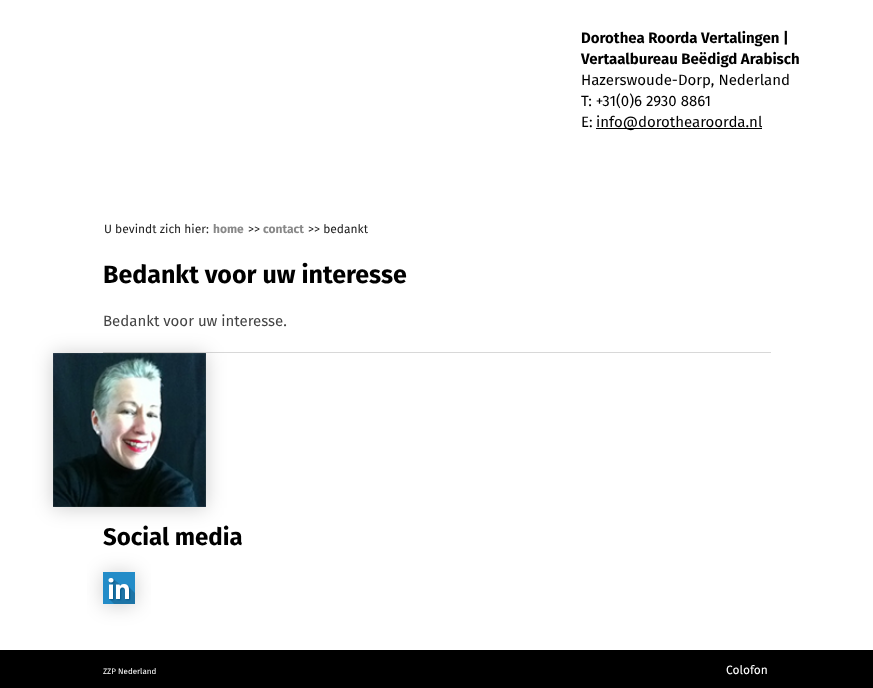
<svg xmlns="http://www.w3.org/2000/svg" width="873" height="688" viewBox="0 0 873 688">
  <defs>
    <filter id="blur1" x="-50%" y="-200%" width="200%" height="500%"><feGaussianBlur stdDeviation="10"/></filter>
  </defs>
  <rect width="100%" height="100%" fill="#ffffff"/>
  <text x="581" y="43" font-family="Fira Sans" font-size="15" font-weight="bold" fill="#000000">Dorothea Roorda Vertalingen |</text>
  <text x="581" y="64" font-family="Fira Sans" font-size="15" font-weight="bold" fill="#000000">Vertaalbureau Beëdigd Arabisch</text>
  <text x="581" y="85" font-family="Fira Sans" font-size="15" fill="#000000">Hazerswoude-Dorp, Nederland</text>
  <text x="581" y="106" font-family="Fira Sans" font-size="15" fill="#000000">T: +31(0)6 2930 8861</text>
  <text x="581" y="127" font-family="Fira Sans" font-size="15" fill="#000000">E:</text>
  <rect x="596" y="128" width="166" height="1" fill="#000000"/>
  <text x="596" y="127" font-family="Fira Sans" font-size="15" fill="#000000">info@dorothearoorda.nl</text>
  <rect x="103" y="352" width="668" height="1" fill="#d8d8d8"/>
  <text x="104" y="233" font-family="Fira Sans" font-size="12" fill="#222222">U bevindt zich hier:</text>
  <text x="213" y="233" font-family="Fira Sans" font-size="12" font-weight="bold" fill="#888888">home</text>
  <text x="248" y="233" font-family="Fira Sans" font-size="12" fill="#222222">&gt;&gt;</text>
  <text x="263" y="233" font-family="Fira Sans" font-size="12" font-weight="bold" fill="#888888">contact</text>
  <text x="308" y="233" font-family="Fira Sans" font-size="12" fill="#222222">&gt;&gt; bedankt</text>
  <text x="103" y="283" font-family="Fira Sans" font-size="25" font-weight="bold" fill="#000000">Bedankt voor uw interesse</text>
  <rect x="53" y="354" width="153" height="154" fill="#000000" fill-opacity="0.2" filter="url(#blur1)"/>
  <text x="103" y="326" font-family="Fira Sans" font-size="15" fill="#444444">Bedankt voor uw interesse.</text>
  <image x="53" y="353" width="153" height="154" href="img1.png"/>
  <rect x="103" y="573" width="32" height="32" fill="#000000" fill-opacity="0.2" filter="url(#blur1)"/>
  <text x="103" y="545" font-family="Fira Sans" font-size="24" font-weight="bold" fill="#000000">Social media</text>
  <image x="103" y="572" width="32" height="32" href="img2.png"/>
  <rect x="0" y="650" width="873" height="38" fill="#000000"/>
  <text x="103" y="674" font-family="Fira Sans" font-size="8" fill="#ffffff">ZZP Nederland</text>
  <text x="726" y="674" font-family="Fira Sans" font-size="12" fill="#ffffff">Colofon</text>
</svg>
